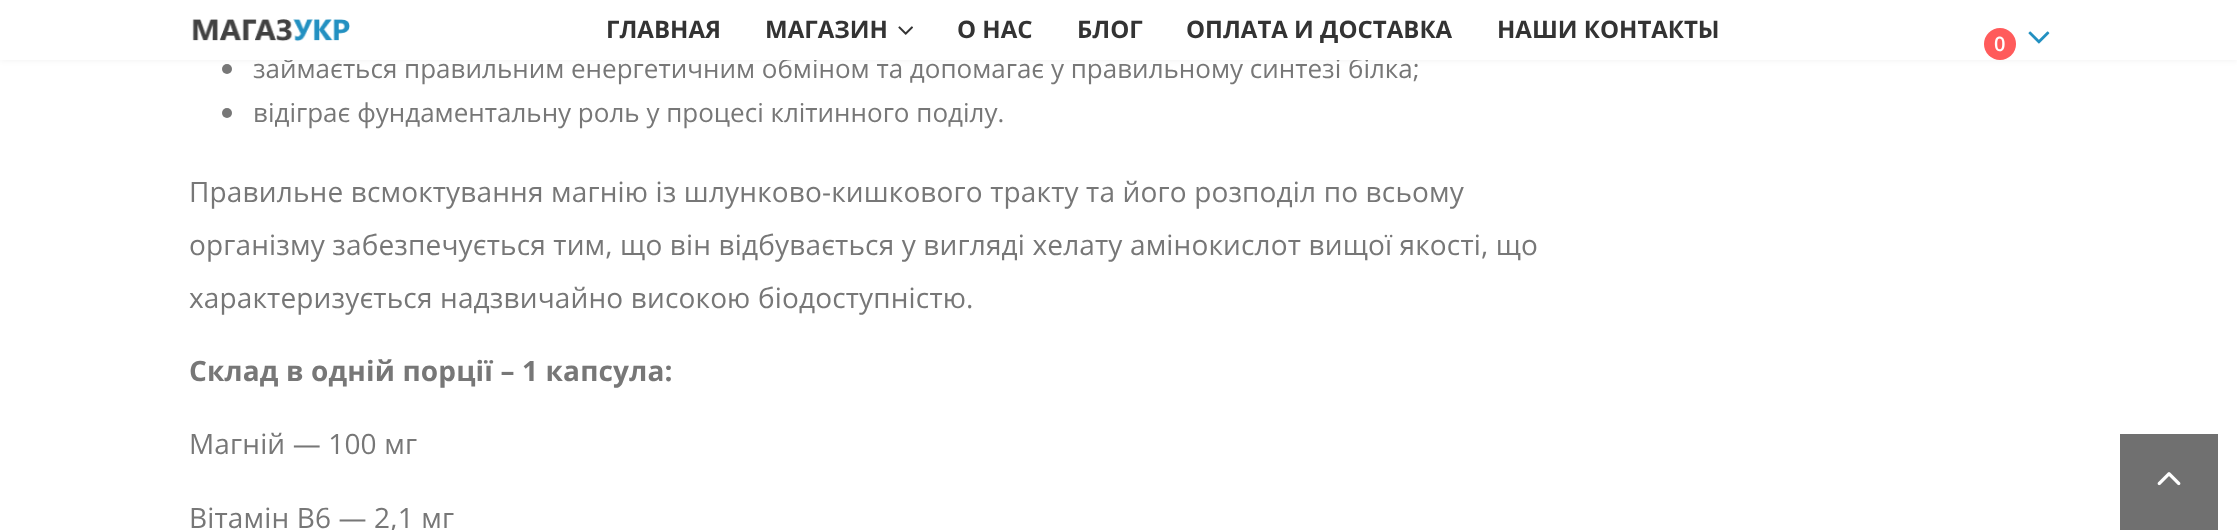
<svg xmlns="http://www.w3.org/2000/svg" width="2237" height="530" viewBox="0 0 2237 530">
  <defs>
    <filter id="blur1" x="-50%" y="-200%" width="200%" height="500%"><feGaussianBlur stdDeviation="3"/></filter>
  </defs>
  <rect width="100%" height="100%" fill="#ffffff"/>
  <circle cx="227" cy="69" r="5" fill="#777777"/>
  <rect x="0" y="0" width="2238" height="60" fill="#000000" fill-opacity="0.06" filter="url(#blur1)"/>
  <text x="253" y="78" font-family="Open Sans" font-size="26" fill="#777777">займається правильним енергетичним обміном та допомагає у правильному синтезі білка;</text>
  <rect x="0" y="0" width="2237" height="60" fill="#ffffff"/>
  <image x="192" y="19" width="158" height="23" href="img1.png"/>
  <text x="606" y="38" font-family="Open Sans" font-size="24" font-weight="bold" fill="#333333">ГЛАВНАЯ</text>
  <text x="765" y="38" font-family="Open Sans" font-size="24" font-weight="bold" fill="#333333">МАГАЗИН</text>
  <image x="898" y="26" width="15" height="9" href="img2.png"/>
  <text x="957" y="38" font-family="Open Sans" font-size="24" font-weight="bold" fill="#333333">О НАС</text>
  <text x="1077" y="38" font-family="Open Sans" font-size="24" font-weight="bold" fill="#333333">БЛОГ</text>
  <text x="1186" y="38" font-family="Open Sans" font-size="24" font-weight="bold" fill="#333333">ОПЛАТА И ДОСТАВКА</text>
  <text x="1497" y="38" font-family="Open Sans" font-size="24" font-weight="bold" fill="#333333">НАШИ КОНТАКТЫ</text>
  <circle cx="2000" cy="44" r="16" fill="#ff5b5b"/>
  <text x="1994" y="51" font-family="Open Sans" font-size="20" font-weight="600" fill="#ffffff">0</text>
  <image x="2028" y="31" width="22" height="13" href="img3.png"/>
  <circle cx="227" cy="113" r="5" fill="#777777"/>
  <text x="253" y="122" font-family="Open Sans" font-size="26" fill="#777777">відіграє фундаментальну роль у процесі клітинного поділу.</text>
  <text x="189" y="202" font-family="Open Sans" font-size="28" letter-spacing="0.15" fill="#777777">Правильне всмоктування магнію із шлунково-кишкового тракту та його розподіл по всьому</text>
  <text x="189" y="255" font-family="Open Sans" font-size="28" letter-spacing="0.15" fill="#777777">організму забезпечується тим, що він відбувається у вигляді хелату амінокислот вищої якості, що</text>
  <text x="189" y="308" font-family="Open Sans" font-size="28" letter-spacing="0.15" fill="#777777">характеризується надзвичайно високою біодоступністю.</text>
  <text x="189" y="381" font-family="Open Sans" font-size="28" font-weight="bold" letter-spacing="0.15" fill="#777777">Склад в одній порції – 1 капсула:</text>
  <text x="189" y="454" font-family="Open Sans" font-size="28" letter-spacing="0.15" fill="#777777">Магній — 100 мг</text>
  <text x="189" y="528" font-family="Open Sans" font-size="28" letter-spacing="0.15" fill="#777777">Вітамін B6 — 2,1 мг</text>
  <rect x="2120" y="434" width="98" height="96" fill="#707070"/>
  <image x="2157" y="472" width="24" height="14" href="img4.png"/>
</svg>
